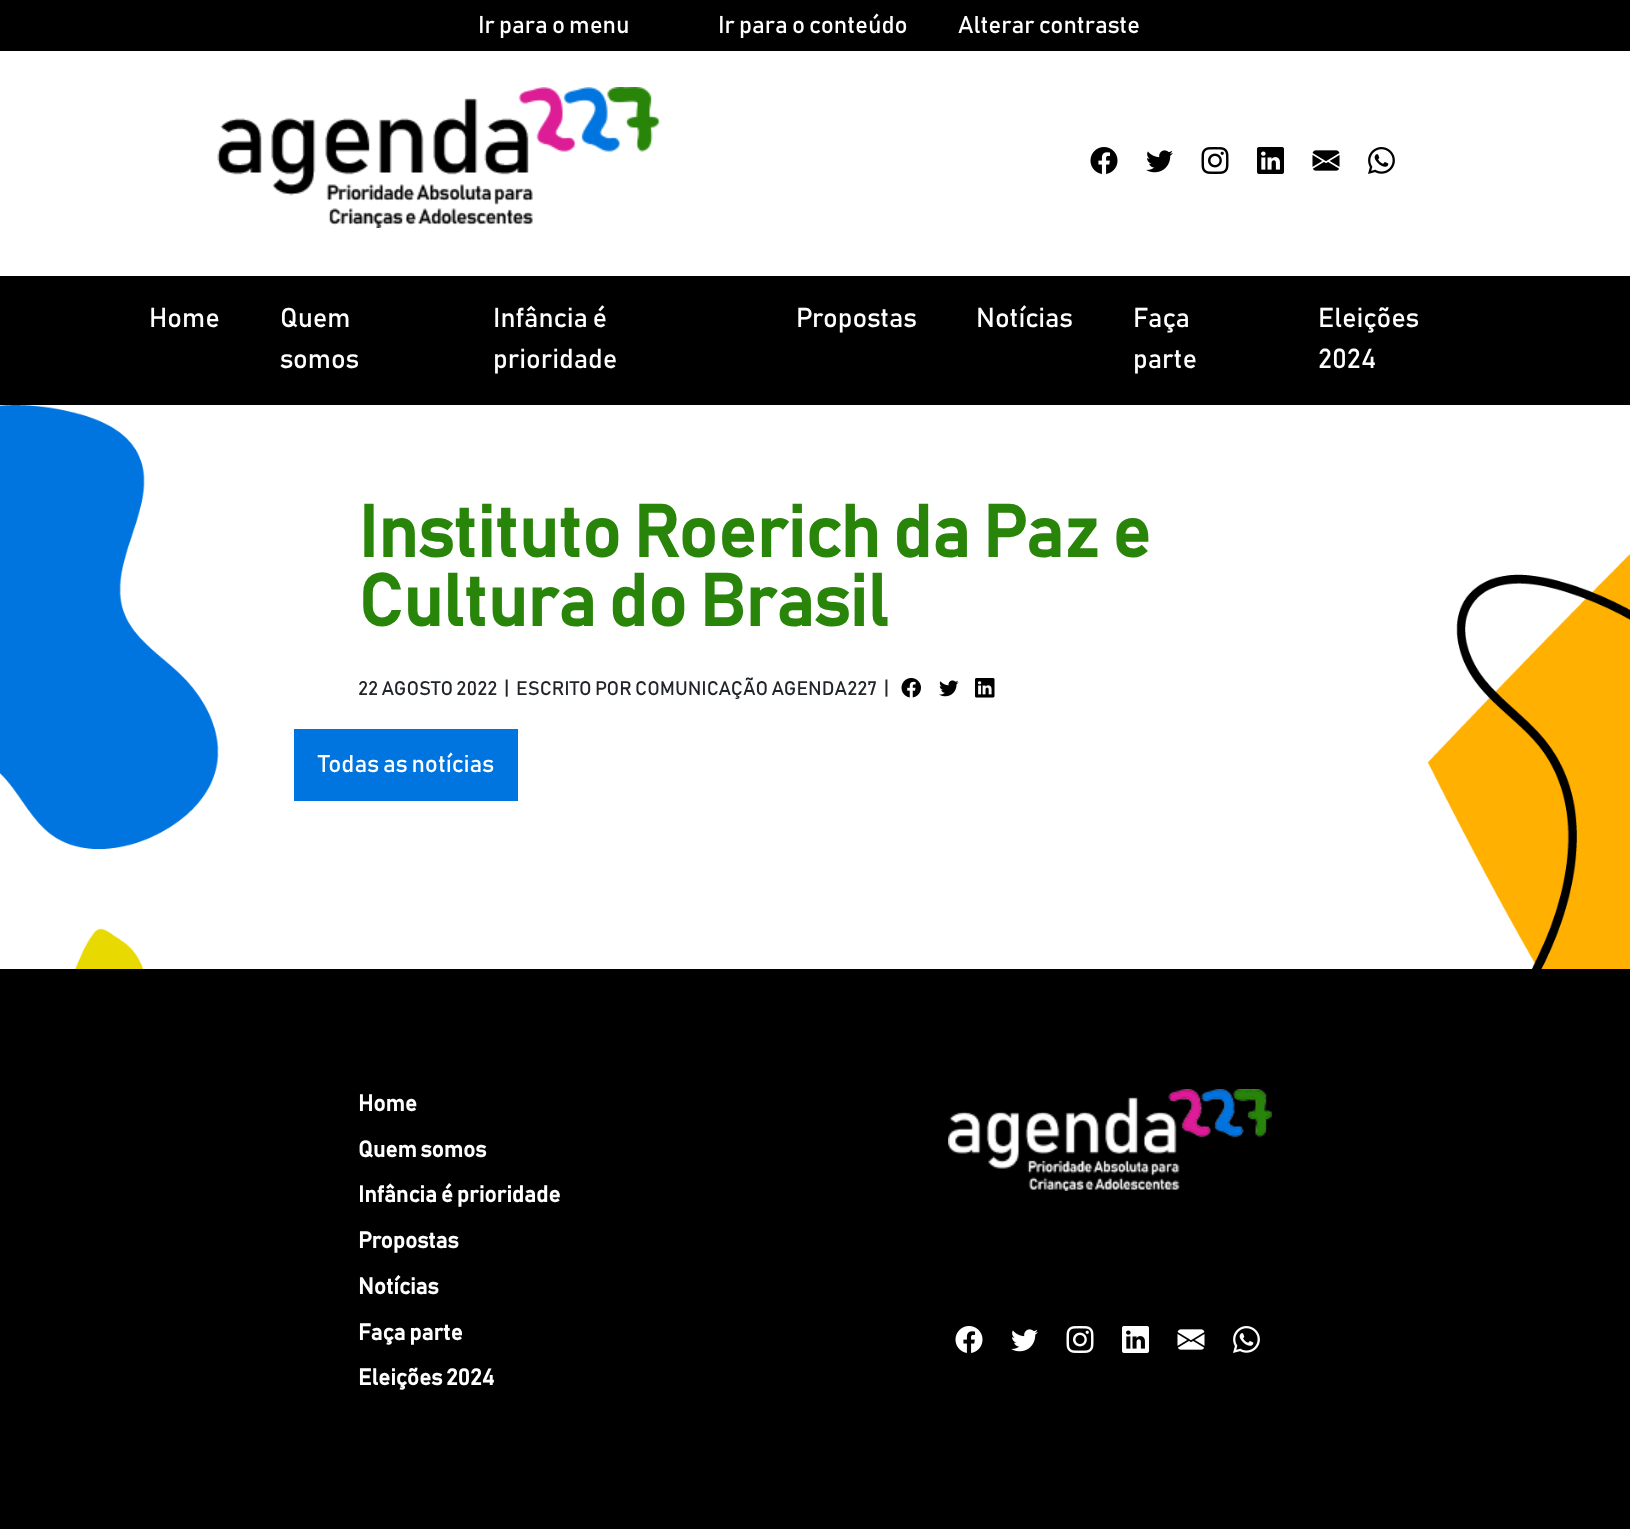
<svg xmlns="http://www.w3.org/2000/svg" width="1630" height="1537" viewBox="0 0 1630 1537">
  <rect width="100%" height="100%" fill="#ffffff"/>
  <rect x="0" y="0" width="1630" height="51" fill="#000000"/>
  <text x="478" y="33" font-family="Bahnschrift" font-size="24" fill="#ffffff">Ir para o menu</text>
  <text x="718" y="33" font-family="Bahnschrift" font-size="24" fill="#ffffff">Ir para o conteúdo</text>
  <text x="958" y="33" font-family="Bahnschrift" font-size="24" fill="#ffffff">Alterar contraste</text>
  <image x="217" y="87" width="443" height="141" href="img1.png"/>
  <image x="1090" y="147" width="28" height="27" href="img2.png"/>
  <image x="1146" y="150" width="27" height="23" href="img3.png"/>
  <image x="1201" y="147" width="28" height="27" href="img4.png"/>
  <image x="1257" y="147" width="27" height="27" href="img5.png"/>
  <image x="1312" y="150" width="28" height="21" href="img6.png"/>
  <image x="1368" y="147" width="27" height="27" href="img7.png"/>
  <rect x="0" y="276" width="1630" height="129" fill="#000000"/>
  <text x="149" y="327" font-family="Bahnschrift" font-size="27" fill="#ffffff">Home</text>
  <text x="280" y="327" font-family="Bahnschrift" font-size="27" fill="#ffffff">Quem</text>
  <text x="280" y="368" font-family="Bahnschrift" font-size="27" fill="#ffffff">somos</text>
  <text x="493" y="327" font-family="Bahnschrift" font-size="27" fill="#ffffff">Infância é</text>
  <text x="493" y="368" font-family="Bahnschrift" font-size="27" fill="#ffffff">prioridade</text>
  <text x="796" y="327" font-family="Bahnschrift" font-size="27" fill="#ffffff">Propostas</text>
  <text x="976" y="327" font-family="Bahnschrift" font-size="27" fill="#ffffff">Notícias</text>
  <text x="1133" y="327" font-family="Bahnschrift" font-size="27" fill="#ffffff">Faça</text>
  <text x="1133" y="368" font-family="Bahnschrift" font-size="27" fill="#ffffff">parte</text>
  <text x="1318" y="327" font-family="Bahnschrift" font-size="27" fill="#ffffff">Eleições</text>
  <text x="1318" y="368" font-family="Bahnschrift" font-size="27" fill="#ffffff">2024</text>
  <image x="0" y="405" width="1630" height="564" href="img8.png"/>
  <text x="358" y="557" font-family="Bahnschrift" font-size="72" font-weight="bold" fill="#29840a">Instituto Roerich da Paz e</text>
  <text x="358" y="626" font-family="Bahnschrift" font-size="72" font-weight="bold" fill="#29840a">Cultura do Brasil</text>
  <text x="358" y="695" font-family="Bahnschrift" font-size="19.5" fill="#212529" xml:space="preserve">22 AGOSTO 2022  |  ESCRITO POR COMUNICAÇÃO AGENDA227  |</text>
  <image x="901" y="678" width="20" height="20" href="img9.png"/>
  <image x="939" y="680" width="20" height="17" href="img10.png"/>
  <image x="975" y="678" width="20" height="20" href="img11.png"/>
  <rect x="294" y="729" width="224" height="72" fill="#0075df"/>
  <text x="318" y="772" font-family="Bahnschrift" font-size="24" fill="#ffffff">Todas as notícias</text>
  <rect x="0" y="969" width="1630" height="560" fill="#000000"/>
  <text x="358" y="1111" font-family="Bahnschrift" font-size="22.5" font-weight="bold" fill="#ffffff">Home</text>
  <text x="358" y="1157" font-family="Bahnschrift" font-size="22.5" font-weight="bold" fill="#ffffff">Quem somos</text>
  <text x="358" y="1202" font-family="Bahnschrift" font-size="22.5" font-weight="bold" fill="#ffffff">Infância é prioridade</text>
  <text x="358" y="1248" font-family="Bahnschrift" font-size="22.5" font-weight="bold" fill="#ffffff">Propostas</text>
  <text x="358" y="1294" font-family="Bahnschrift" font-size="22.5" font-weight="bold" fill="#ffffff">Notícias</text>
  <text x="358" y="1340" font-family="Bahnschrift" font-size="22.5" font-weight="bold" fill="#ffffff">Faça parte</text>
  <text x="358" y="1385" font-family="Bahnschrift" font-size="22.5" font-weight="bold" fill="#ffffff">Eleições 2024</text>
  <image x="948" y="1089" width="324" height="102" href="img12.png"/>
  <image x="955" y="1326" width="28" height="27" href="img13.png"/>
  <image x="1011" y="1329" width="27" height="23" href="img14.png"/>
  <image x="1066" y="1326" width="28" height="27" href="img15.png"/>
  <image x="1122" y="1326" width="27" height="27" href="img16.png"/>
  <image x="1177" y="1329" width="28" height="21" href="img17.png"/>
  <image x="1233" y="1326" width="27" height="27" href="img18.png"/>
</svg>
